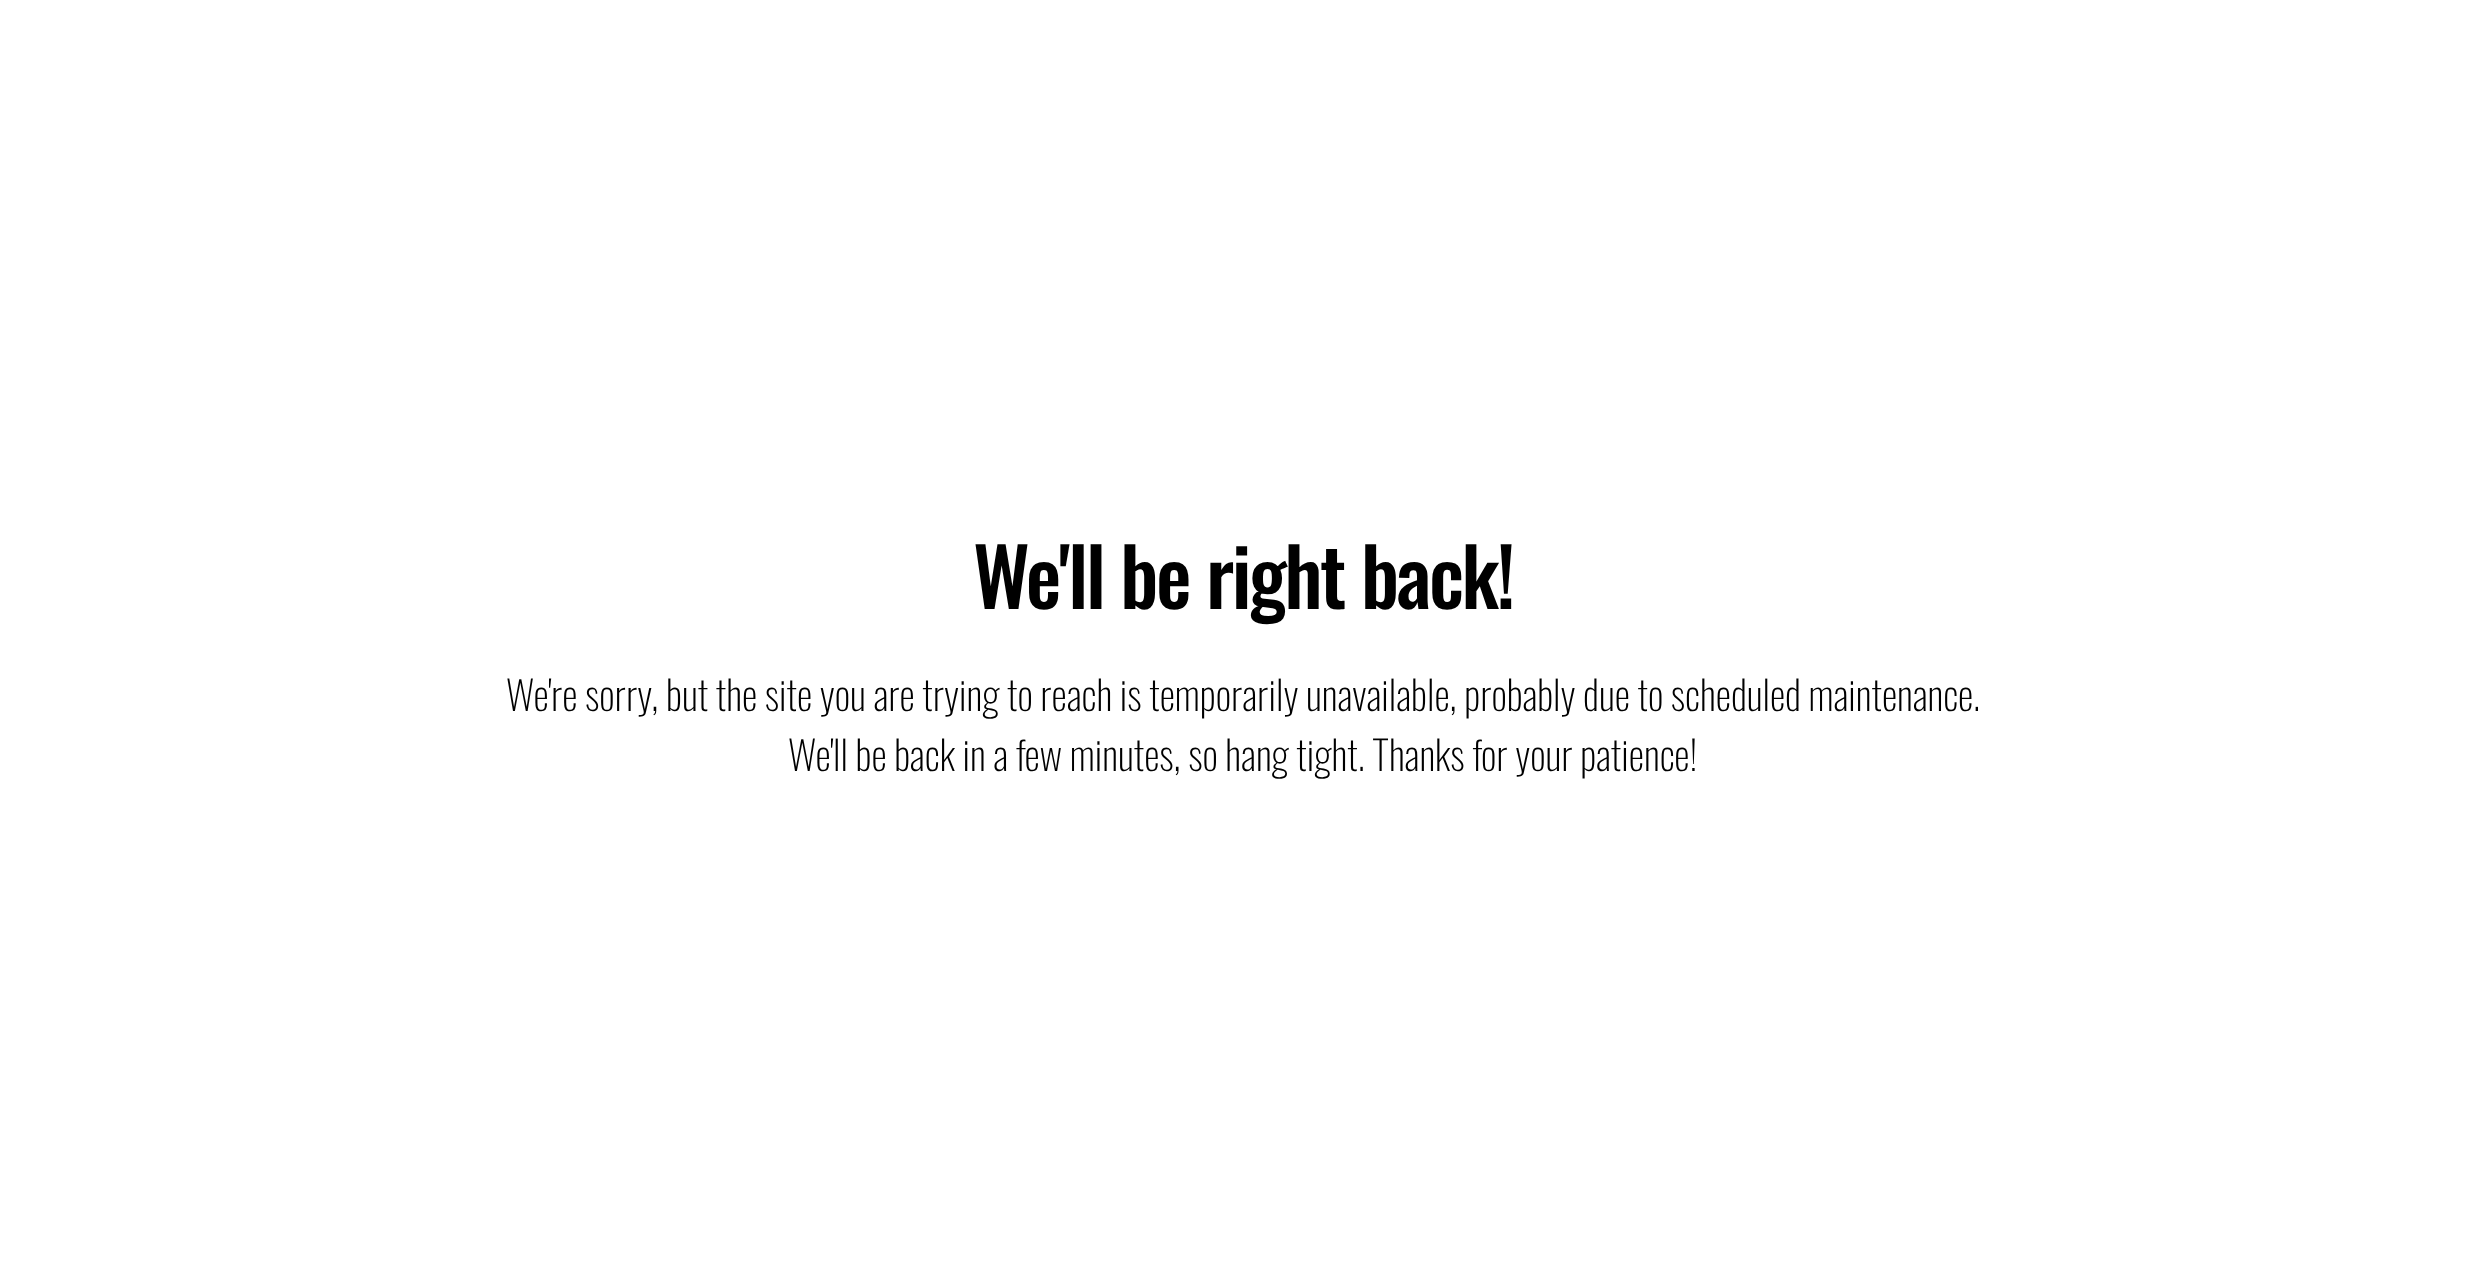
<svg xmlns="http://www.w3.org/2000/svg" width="2486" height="1267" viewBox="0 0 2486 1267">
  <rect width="100%" height="100%" fill="#ffffff"/>
  <text x="973" y="609" font-family="Oswald" font-size="80" font-weight="500" letter-spacing="-2.5" fill="#000000">We'll be right back!</text>
  <text x="506" y="711" font-family="Oswald" font-size="40" font-weight="200" fill="#000000">We're sorry, but the site you are trying to reach is temporarily unavailable, probably due to scheduled maintenance.</text>
  <text x="788" y="771" font-family="Oswald" font-size="40" font-weight="200" fill="#000000">We'll be back in a few minutes, so hang tight. Thanks for your patience!</text>
</svg>
